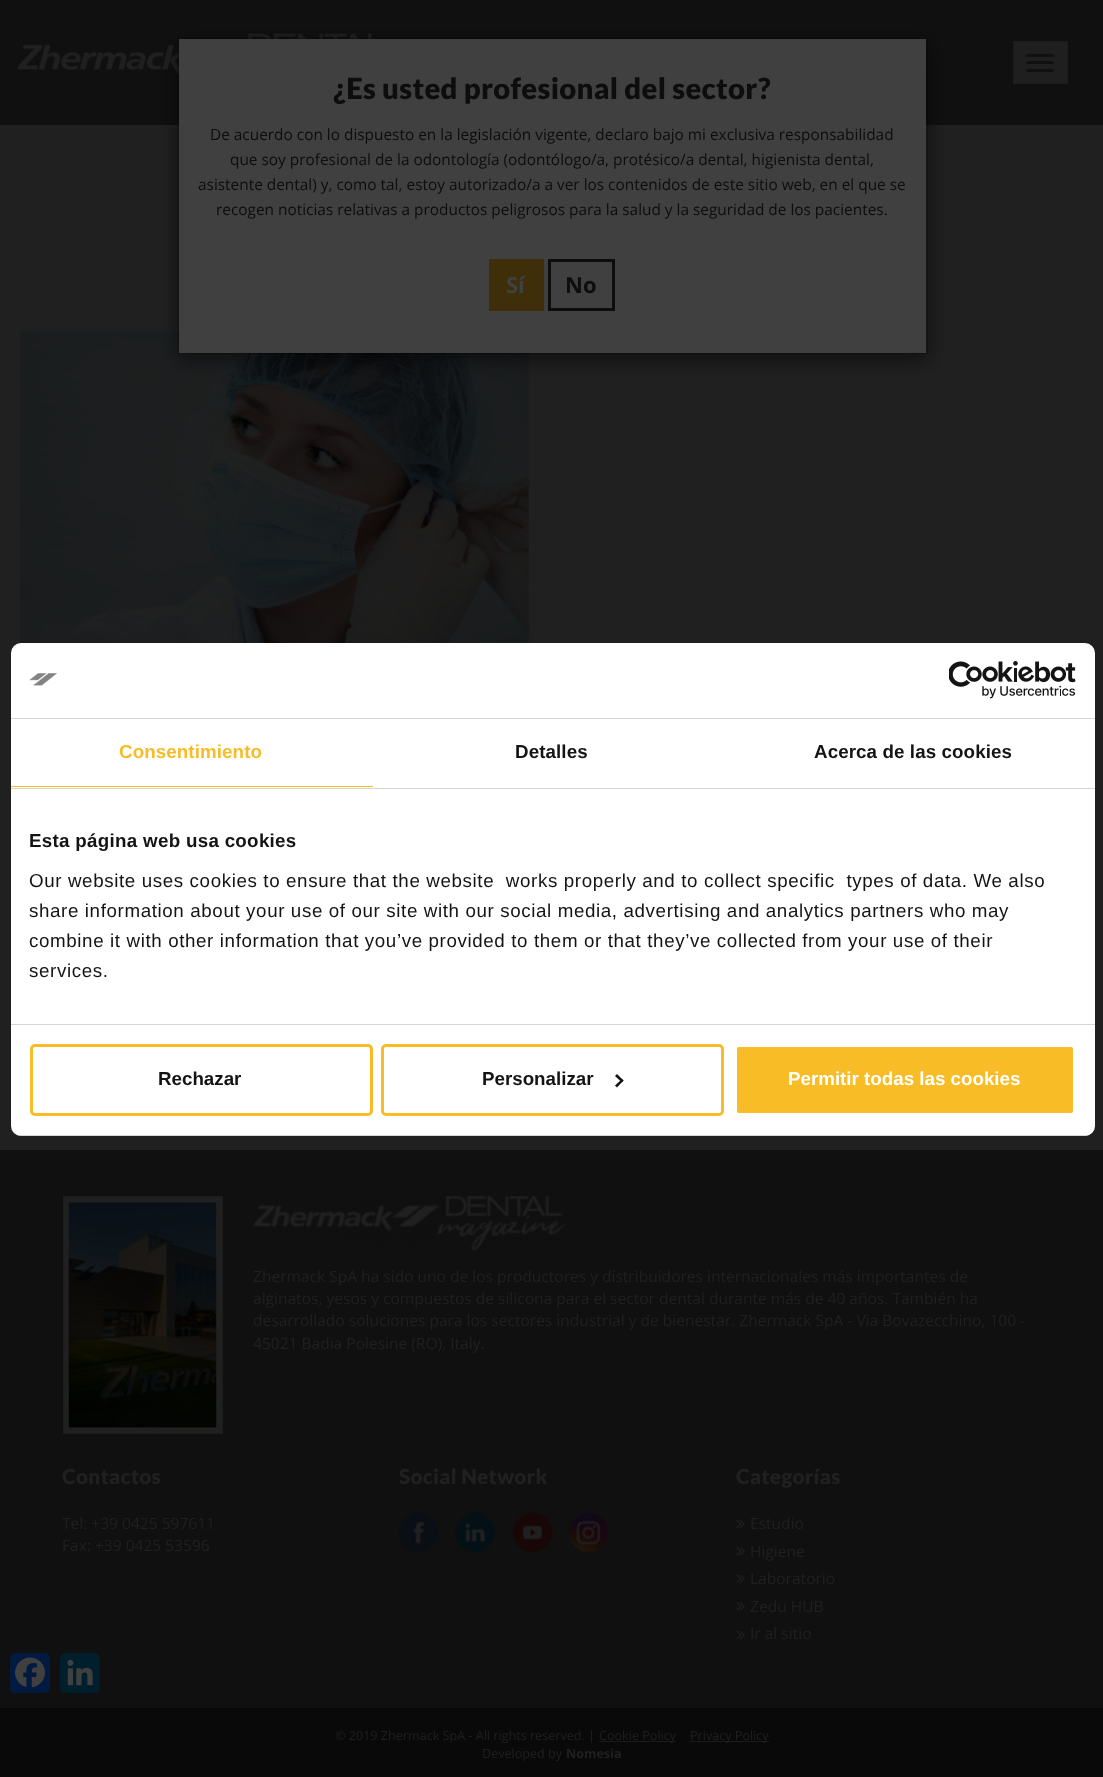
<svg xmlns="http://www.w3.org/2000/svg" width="1103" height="1777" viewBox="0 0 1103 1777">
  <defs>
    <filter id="blur1" x="-50%" y="-200%" width="200%" height="500%"><feGaussianBlur stdDeviation="9.5"/></filter>
    <clipPath id="clip1"><rect x="11" y="643" width="1084" height="493" rx="10"/></clipPath>
  </defs>
  <rect width="100%" height="100%" fill="#202020"/>
  <rect x="0" y="0" width="1103" height="125" fill="#101010"/>
  <image x="17" y="33" width="355" height="41" href="img1.png"/>
  <rect x="1013.5" y="41.5" width="54" height="42" fill="#1f1f1f" stroke="#1c1c1c"/>
  <rect x="1026" y="54" width="28" height="3" rx="1.5" fill="#111111"/>
  <rect x="1026" y="61" width="28" height="3" rx="1.5" fill="#111111"/>
  <rect x="1026" y="69" width="28" height="3" rx="1.5" fill="#111111"/>
  <image x="20" y="331" width="509" height="313" href="img2.png"/>
  <rect x="178" y="44" width="750" height="316" fill="#000000" fill-opacity="0.5" filter="url(#blur1)"/>
  <rect x="179" y="39" width="747" height="314" fill="#404040"/>
  <rect x="178.5" y="38.5" width="749" height="315" fill="none" stroke="#000000" stroke-opacity="0.2"/>
  <text x="333" y="99" font-family="Lato" font-size="29.2" font-weight="900" letter-spacing="0.3" fill="#0d0d0d">¿Es usted profesional del sector?</text>
  <text x="210" y="140" font-family="Open Sans" font-size="15.4" fill="#0d0d0d">De acuerdo con lo dispuesto en la legislación vigente, declaro bajo mi exclusiva responsabilidad</text>
  <text x="230" y="165" font-family="Open Sans" font-size="15.4" fill="#0d0d0d">que soy profesional de la odontología (odontólogo/a, protésico/a dental, higienista dental,</text>
  <text x="198" y="190" font-family="Open Sans" font-size="15.4" fill="#0d0d0d">asistente dental) y, como tal, estoy autorizado/a a ver los contenidos de este sitio web, en el que se</text>
  <text x="216" y="215" font-family="Open Sans" font-size="15.4" fill="#0d0d0d">recogen noticias relativas a productos peligrosos para la salud y la seguridad de los pacientes.</text>
  <rect x="489" y="259" width="55" height="52" fill="#3e2f0a"/>
  <text x="506" y="293" font-family="Open Sans" font-size="22" font-weight="bold" fill="#404040">Sí</text>
  <rect x="549.5" y="260.5" width="64" height="49" fill="none" stroke="#0d0d0d" stroke-width="3"/>
  <text x="565" y="293" font-family="Open Sans" font-size="22" font-weight="bold" fill="#0d0d0d">No</text>
  <rect x="0" y="1150" width="1103" height="558" fill="#101010"/>
  <rect x="63.5" y="1196.5" width="159" height="237" fill="#202020" stroke="#1c1c1c"/>
  <image x="68" y="1202" width="149" height="226" href="img3.png"/>
  <image x="253" y="1196" width="314" height="54" href="img4.png"/>
  <text x="253" y="1282" font-family="Open Sans" font-size="15.55" fill="#202020">Zhermack SpA ha sido uno de los productores y distribuidores internacionales más importantes de</text>
  <text x="253" y="1304" font-family="Open Sans" font-size="15.55" fill="#202020">alginatos, yesos y compuestos de silicona para el sector dental durante más de 40 años. También ha</text>
  <text x="253" y="1326" font-family="Open Sans" font-size="15.55" fill="#202020">desarrollado soluciones para los sectores industrial y de bienestar. Zhermack SpA - Via Bovazecchino, 100 -</text>
  <text x="253" y="1349" font-family="Open Sans" font-size="15.55" fill="#202020">45021 Badia Polesine (RO), Italy.</text>
  <text x="62" y="1484" font-family="Lato" font-size="20.75" font-weight="900" letter-spacing="0.25" fill="#202020">Contactos</text>
  <text x="62" y="1529" font-family="Open Sans" font-size="15.55" fill="#202020">Tel: +39 0425 597611</text>
  <text x="62" y="1551" font-family="Open Sans" font-size="15.55" fill="#202020">Fax: +39 0425 53596</text>
  <text x="399" y="1484" font-family="Lato" font-size="20.75" font-weight="900" letter-spacing="0.25" fill="#202020">Social Network</text>
  <image x="398" y="1512" width="41" height="41" href="img5.png"/>
  <image x="455" y="1512" width="40" height="41" href="img6.png"/>
  <image x="512" y="1512" width="41" height="41" href="img7.png"/>
  <image x="568" y="1512" width="41" height="41" href="img8.png"/>
  <text x="736" y="1484" font-family="Lato" font-size="20.75" font-weight="900" letter-spacing="0.25" fill="#202020">Categorías</text>
  <image x="736" y="1519" width="9" height="9" href="img9.png"/>
  <text x="750" y="1529" font-family="Open Sans" font-size="15.55" fill="#202020">Estudio</text>
  <image x="736" y="1547" width="9" height="9" href="img10.png"/>
  <text x="750" y="1557" font-family="Open Sans" font-size="15.55" fill="#202020">Higiene</text>
  <image x="736" y="1574" width="9" height="9" href="img9.png"/>
  <text x="750" y="1584" font-family="Open Sans" font-size="15.55" fill="#202020">Laboratorio</text>
  <image x="736" y="1602" width="9" height="9" href="img10.png"/>
  <text x="750" y="1612" font-family="Open Sans" font-size="15.55" fill="#202020">Zedu HUB</text>
  <image x="736" y="1630" width="9" height="10" href="img11.png"/>
  <text x="750" y="1639" font-family="Open Sans" font-size="15.55" fill="#202020">Ir al sitio</text>
  <rect x="10" y="1653" width="40" height="40" rx="5" fill="#021a40"/>
  <image x="15" y="1657" width="30" height="31" href="img12.png"/>
  <rect x="60" y="1653" width="40" height="40" rx="5" fill="#001f2d"/>
  <image x="67" y="1659" width="26" height="27" href="img13.png"/>
  <rect x="0" y="1708" width="1103" height="69" fill="#090909"/>
  <text x="335" y="1740" font-family="Open Sans" font-size="12.6" fill="#202020">© 2019 Zhermack SpA - All rights reserved. |</text>
  <rect x="599" y="1741" width="77" height="1" fill="#1b1b1b"/>
  <text x="599" y="1740" font-family="Open Sans" font-size="12.6" fill="#202020">Cookie Policy</text>
  <rect x="690" y="1741" width="79" height="1" fill="#1b1b1b"/>
  <text x="690" y="1740" font-family="Open Sans" font-size="12.6" fill="#202020">Privacy Policy</text>
  <text x="482" y="1758" font-family="Open Sans" font-size="12.6" fill="#202020">Developed by</text>
  <text x="566" y="1758" font-family="Open Sans" font-size="12.6" font-weight="bold" fill="#202020">Nomesia</text>
  <rect x="11" y="643" width="1084" height="493" rx="10" fill="#ffffff"/>
  <rect x="11" y="718" width="1084" height="1" fill="#d6d6d6"/>
  <image x="29" y="673" width="28" height="13" href="img14.png"/>
  <image x="949" y="661" width="127" height="38" href="img15.png"/>
  <rect x="11" y="788" width="1084" height="1" fill="#d6d6d6"/>
  <rect x="11" y="786" width="362" height="1" fill="#f8bc27"/>
  <text x="119" y="758" font-family="Liberation Sans" font-size="18.75" font-weight="bold" letter-spacing="0.1" fill="#f8bc27">Consentimiento</text>
  <text x="515" y="758" font-family="Liberation Sans" font-size="18.75" font-weight="bold" letter-spacing="0.1" fill="#141414">Detalles</text>
  <text x="814" y="758" font-family="Liberation Sans" font-size="18.75" font-weight="bold" letter-spacing="0.1" fill="#141414">Acerca de las cookies</text>
  <rect x="11" y="1024" width="1084" height="1" fill="#d6d6d6"/>
  <text x="29" y="847" font-family="Liberation Sans" font-size="18.75" font-weight="bold" letter-spacing="0.3" fill="#141414">Esta página web usa cookies</text>
  <text x="29" y="887" font-family="Liberation Sans" font-size="18.75" letter-spacing="0.62" fill="#141414" xml:space="preserve">Our website uses cookies to ensure that the website  works properly and to collect specific  types of data. We also</text>
  <text x="29" y="917" font-family="Liberation Sans" font-size="18.75" letter-spacing="0.62" fill="#141414">share information about your use of our site with our social media, advertising and analytics partners who may</text>
  <text x="29" y="947" font-family="Liberation Sans" font-size="18.75" letter-spacing="0.62" fill="#141414">combine it with other information that you’ve provided to them or that they’ve collected from your use of their</text>
  <text x="29" y="977" font-family="Liberation Sans" font-size="18.75" letter-spacing="0.62" fill="#141414">services.</text>
  <g clip-path="url(#clip1)">
    <rect x="11" y="1135" width="1084" height="1" fill="#d6d6d6"/>
  </g>
  <rect x="31.5" y="1045.5" width="340" height="69" rx="3.5" fill="none" stroke="#f8bc27" stroke-width="3"/>
  <text x="158" y="1085" font-family="Liberation Sans" font-size="18.75" font-weight="bold" fill="#141414">Rechazar</text>
  <rect x="382.5" y="1045.5" width="340" height="69" rx="3.5" fill="none" stroke="#f8bc27" stroke-width="3"/>
  <text x="482" y="1085" font-family="Liberation Sans" font-size="18.75" font-weight="bold" fill="#141414">Personalizar</text>
  <path d="M617 1074L623.5 1080.5L622 1082.5L615 1076Z" fill="#141414"/>
  <path d="M622 1079L623.5 1080.5L617 1087.5L615 1085.5Z" fill="#141414"/>
  <rect x="735.5" y="1045.5" width="339" height="69" rx="3.5" fill="#f8bc27" stroke="#ffffff" stroke-width="3"/>
  <text x="788" y="1085" font-family="Liberation Sans" font-size="18.75" font-weight="bold" fill="#ffffff">Permitir todas las cookies</text>
</svg>
